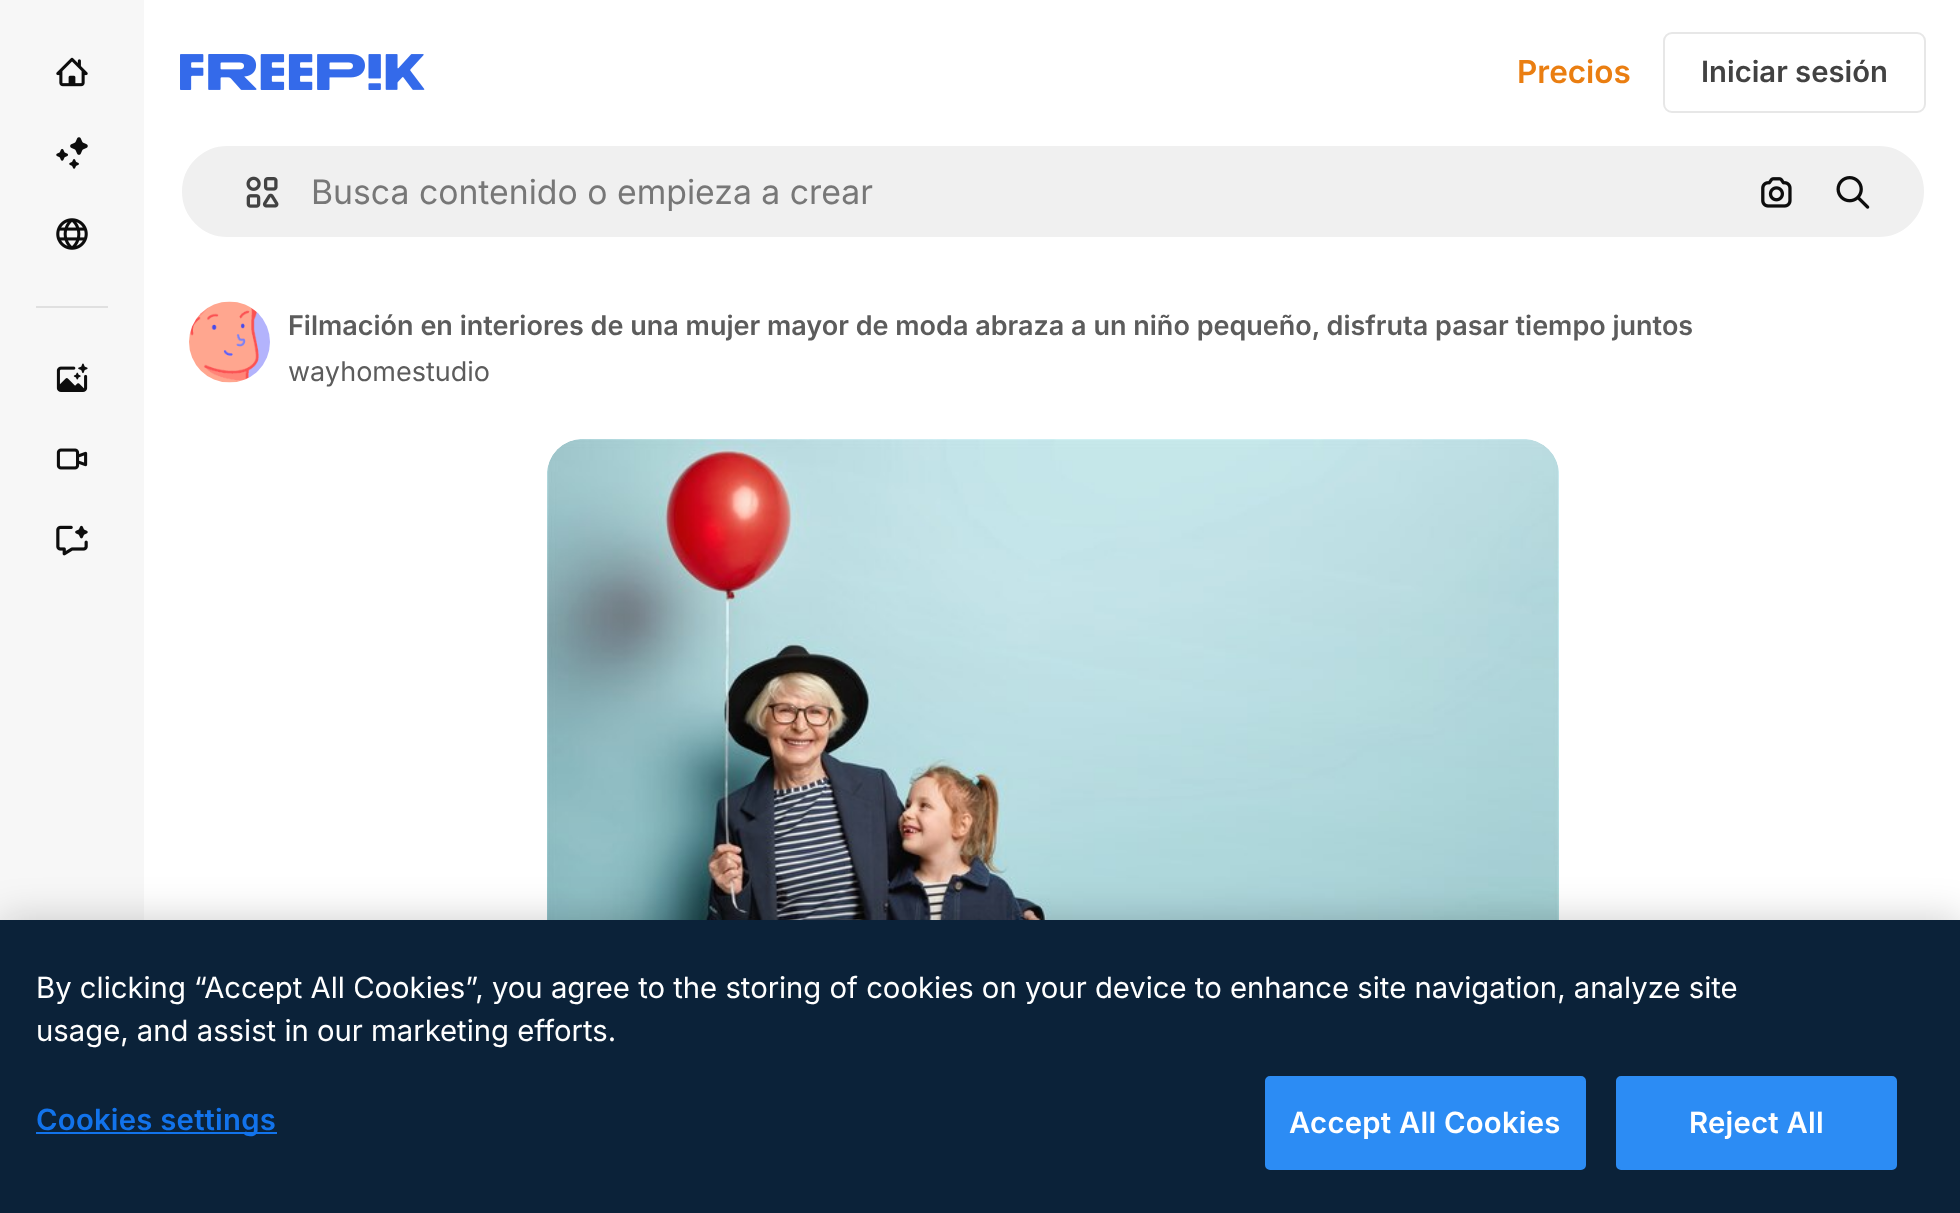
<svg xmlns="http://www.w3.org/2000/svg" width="1960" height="1213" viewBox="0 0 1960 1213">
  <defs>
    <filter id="blur1" x="-50%" y="-200%" width="200%" height="500%"><feGaussianBlur stdDeviation="20"/></filter>
  </defs>
  <rect width="100%" height="100%" fill="#ffffff"/>
  <rect x="0" y="0" width="144" height="920" fill="#f7f7f7"/>
  <image x="56" y="57" width="32" height="30" href="img1.png"/>
  <image x="56" y="137" width="32" height="32" href="img2.png"/>
  <image x="56" y="218" width="32" height="32" href="img3.png"/>
  <rect x="36" y="306" width="72" height="2" fill="#e0e0e0"/>
  <image x="56" y="363" width="32" height="29" href="img4.png"/>
  <image x="56" y="448" width="32" height="22" href="img5.png"/>
  <image x="56" y="525" width="32" height="31" href="img6.png"/>
  <image x="180" y="54" width="245" height="36" href="img7.png"/>
  <text x="1517" y="83" font-family="Inter" font-size="31.5" font-weight="600" fill="#ea7e11">Precios</text>
  <rect x="1664" y="33" width="261" height="79" rx="8" fill="none" stroke="#e7e7e7" stroke-width="2"/>
  <text x="1701" y="82" font-family="Inter" font-size="29.25" font-weight="600" fill="#424242">Iniciar sesión</text>
  <rect x="181" y="145" width="1744" height="93" rx="46.5" fill="#f0f0f0" stroke="#ffffff" stroke-width="2"/>
  <image x="246" y="176" width="33" height="32" href="img8.png"/>
  <text x="311" y="204" font-family="Inter" font-size="33.75" fill="#777777">Busca contenido o empieza a crear</text>
  <image x="1761" y="177" width="31" height="31" href="img9.png"/>
  <image x="1836" y="176" width="34" height="33" href="img10.png"/>
  <image x="189" y="301" width="81" height="82" href="img11.png"/>
  <text x="288" y="335" font-family="Inter" font-size="27" font-weight="600" fill="#5c5c5c">Filmación en interiores de una mujer mayor de moda abraza a un niño pequeño, disfruta pasar tiempo juntos</text>
  <text x="288" y="381" font-family="Inter" font-size="27" fill="#5c5c5c">wayhomestudio</text>
  <image x="547" y="439" width="1012" height="481" href="img12.png"/>
  <rect x="0" y="920" width="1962" height="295" fill="#000000" fill-opacity="0.2" filter="url(#blur1)"/>
  <rect x="0" y="920" width="1960" height="293" fill="#0b2239"/>
  <text x="36" y="998" font-family="Inter" font-size="29.27" fill="#ffffff">By clicking “Accept All Cookies”, you agree to the storing of cookies on your device to enhance site navigation, analyze site</text>
  <text x="36" y="1041" font-family="Inter" font-size="29.27" fill="#ffffff">usage, and assist in our marketing efforts.</text>
  <rect x="36" y="1132" width="241" height="2" fill="#1273eb"/>
  <text x="36" y="1130" font-family="Inter" font-size="29.27" font-weight="600" letter-spacing="0.25" fill="#1273eb">Cookies settings</text>
  <rect x="1266" y="1077" width="319" height="92" rx="4" fill="#2c8cf4" stroke="#2c8cf4" stroke-width="2"/>
  <text x="1289" y="1133" font-family="Inter" font-size="29.27" font-weight="600" letter-spacing="0.25" fill="#ffffff">Accept All Cookies</text>
  <rect x="1617" y="1077" width="279" height="92" rx="4" fill="#2c8cf4" stroke="#2c8cf4" stroke-width="2"/>
  <text x="1689" y="1133" font-family="Inter" font-size="29.27" font-weight="600" letter-spacing="0.25" fill="#ffffff">Reject All</text>
</svg>
